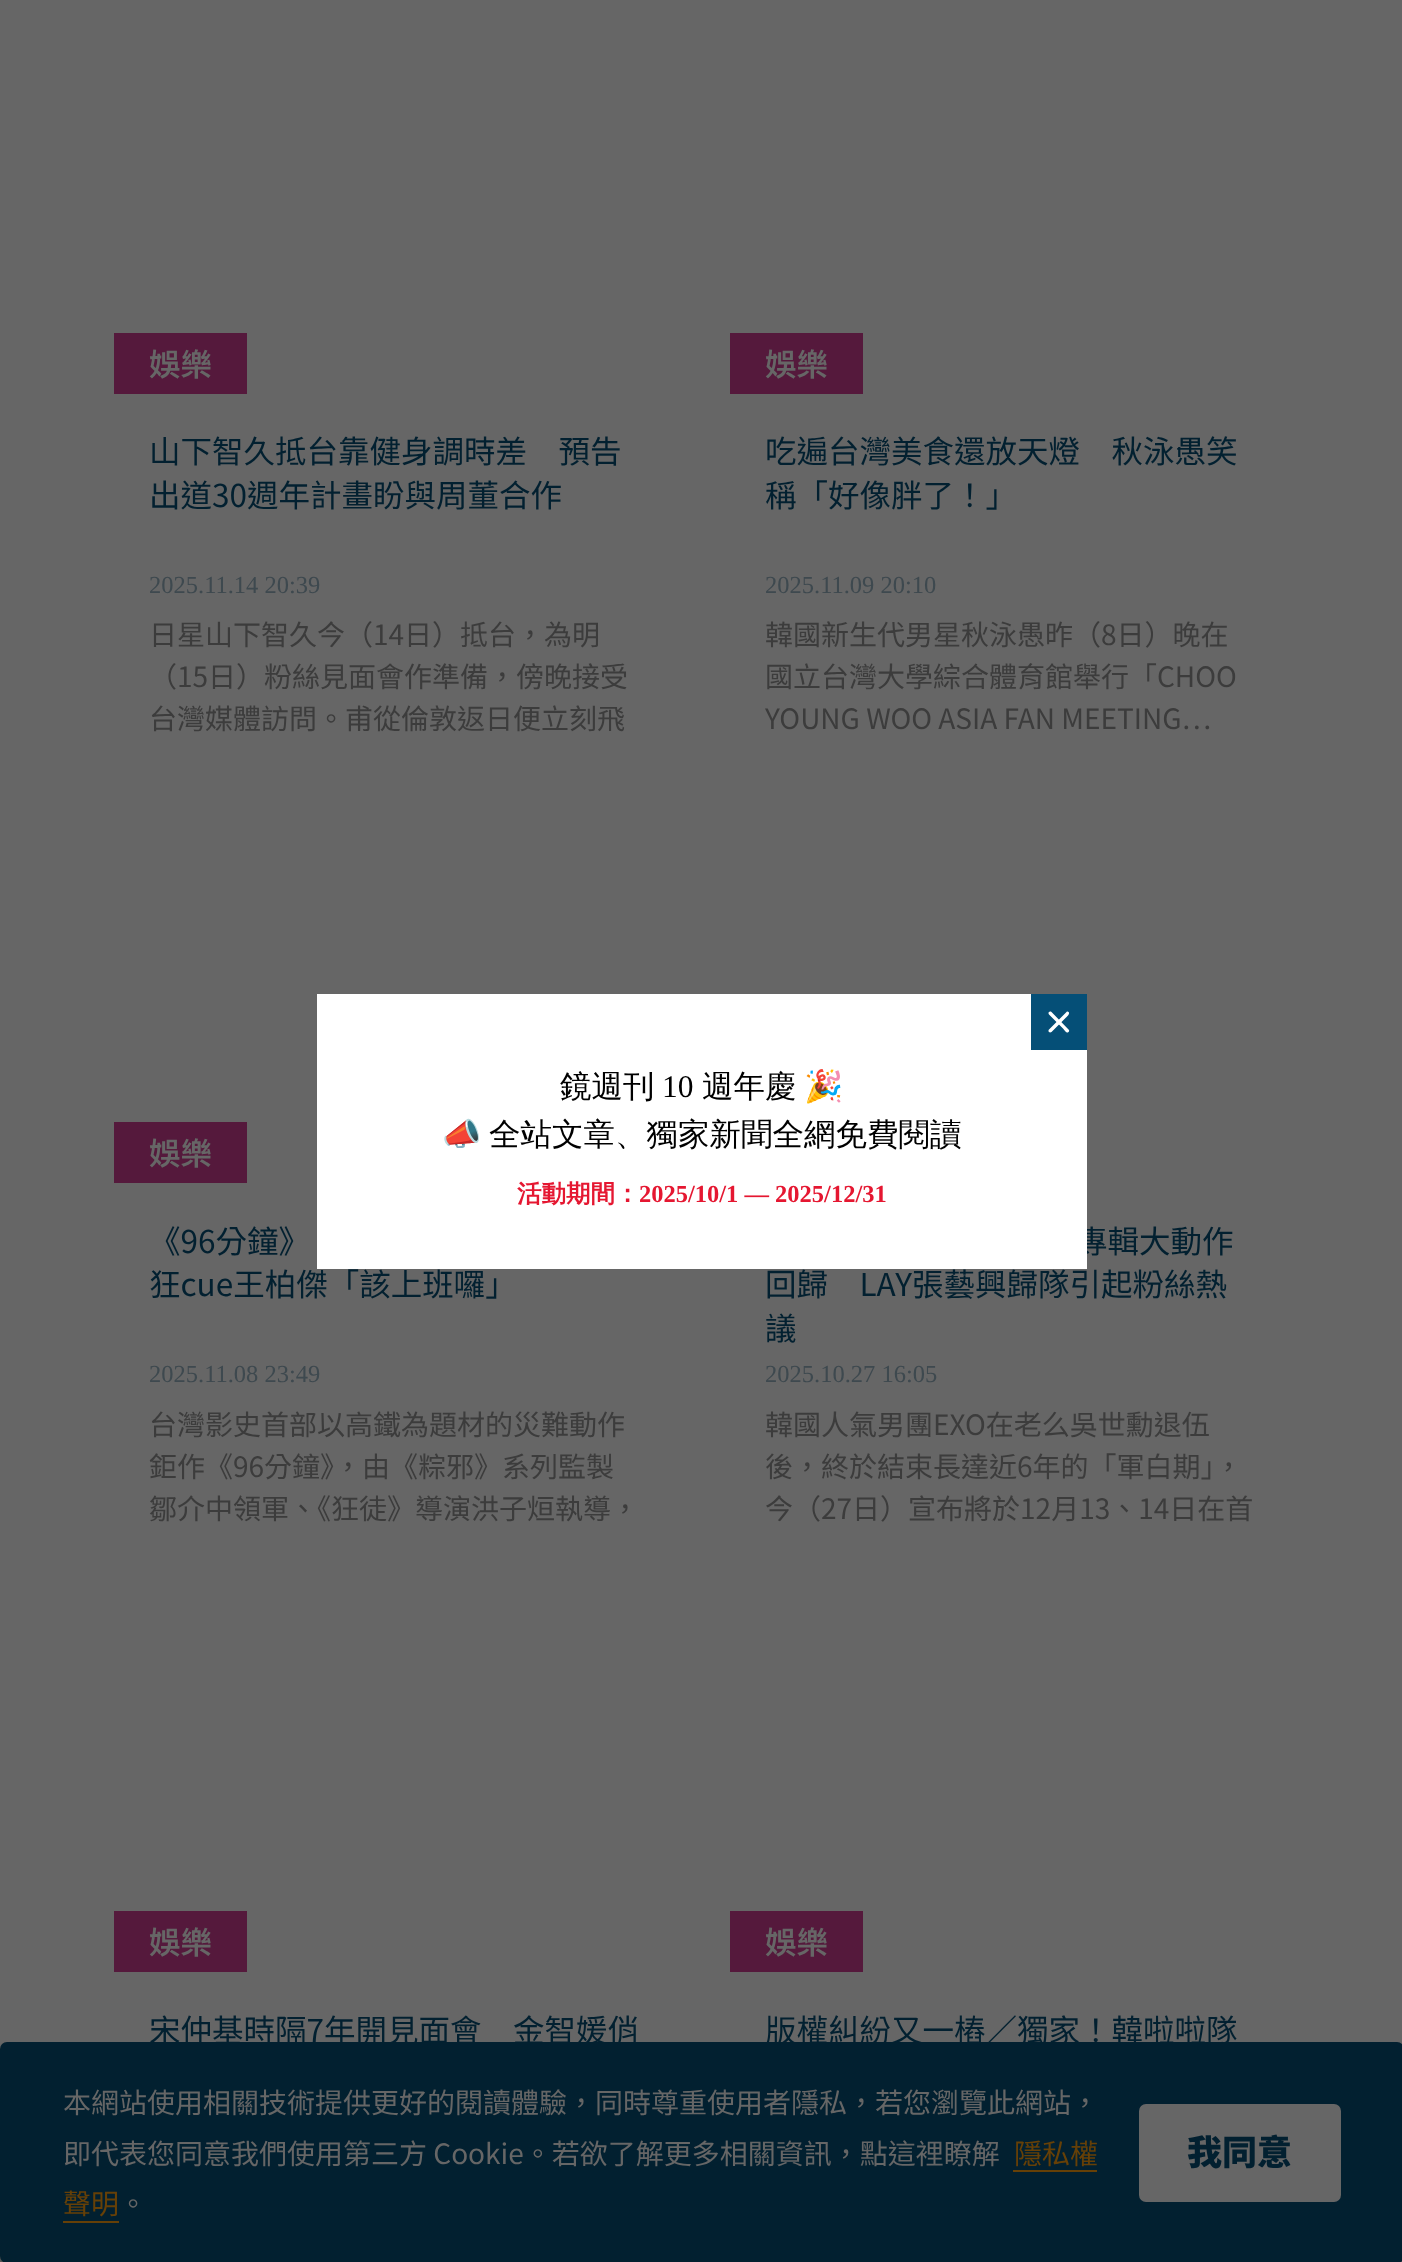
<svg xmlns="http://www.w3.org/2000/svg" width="1402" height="2262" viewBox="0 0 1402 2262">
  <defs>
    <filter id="blur1" x="-50%" y="-200%" width="200%" height="500%"><feGaussianBlur stdDeviation="3.5"/></filter>
  </defs>
  <rect width="100%" height="100%" fill="#666666"/>
  <rect x="114" y="333" width="133" height="61" fill="#55193c"/>
  <text x="149" y="376" font-family="Noto Sans TC" font-size="31.5" font-weight="600" fill="#666666">娛樂</text>
  <text x="149" y="463" font-family="Noto Sans TC" font-size="31.5" fill="#022030">山下智久抵台靠健身調時差　預告</text>
  <text x="149" y="507" font-family="Noto Sans TC" font-size="31.5" fill="#022030">出道30週年計畫盼與周董合作</text>
  <text x="149" y="593" font-family="Liberation Serif" font-size="24.5" fill="#3e494f">2025.11.14 20:39</text>
  <text x="149" y="645" font-family="Noto Sans TC" font-size="28" fill="#3c3c3c">日星山下智久今（14日）抵台，為明</text>
  <text x="149" y="687" font-family="Noto Sans TC" font-size="28" fill="#3c3c3c">（15日）粉絲見面會作準備，傍晚接受</text>
  <text x="149" y="729" font-family="Noto Sans TC" font-size="28" fill="#3c3c3c">台灣媒體訪問。甫從倫敦返日便立刻飛</text>
  <rect x="730" y="333" width="133" height="61" fill="#55193c"/>
  <text x="765" y="376" font-family="Noto Sans TC" font-size="31.5" font-weight="600" fill="#666666">娛樂</text>
  <text x="765" y="463" font-family="Noto Sans TC" font-size="31.5" fill="#022030">吃遍台灣美食還放天燈　秋泳愚笑</text>
  <text x="765" y="507" font-family="Noto Sans TC" font-size="31.5" fill="#022030">稱「好像胖了！」</text>
  <text x="765" y="593" font-family="Liberation Serif" font-size="24.5" fill="#3e494f">2025.11.09 20:10</text>
  <text x="765" y="645" font-family="Noto Sans TC" font-size="28" fill="#3c3c3c">韓國新生代男星秋泳愚昨（8日）晚在</text>
  <text x="765" y="687" font-family="Noto Sans TC" font-size="28" fill="#3c3c3c">國立台灣大學綜合體育館舉行「CHOO</text>
  <text x="765" y="729" font-family="Noto Sans TC" font-size="28" fill="#3c3c3c">YOUNG WOO ASIA FAN MEETING…</text>
  <rect x="114" y="1122" width="133" height="61" fill="#55193c"/>
  <text x="149" y="1165" font-family="Noto Sans TC" font-size="31.5" font-weight="600" fill="#666666">娛樂</text>
  <text x="149" y="1253" font-family="Noto Sans TC" font-size="31.5" fill="#022030">《96分鐘》</text>
  <text x="149" y="1296" font-family="Noto Sans TC" font-size="31.5" fill="#022030">狂cue王柏傑「該上班囉」</text>
  <text x="149" y="1382" font-family="Liberation Serif" font-size="24.5" fill="#3e494f">2025.11.08 23:49</text>
  <text x="149" y="1435" font-family="Noto Sans TC" font-size="28" fill="#3c3c3c">台灣影史首部以高鐵為題材的災難動作</text>
  <text x="149" y="1477" font-family="Noto Sans TC" font-size="28" fill="#3c3c3c">鉅作《96分鐘》，由《粽邪》系列監製</text>
  <text x="149" y="1519" font-family="Noto Sans TC" font-size="28" fill="#3c3c3c">鄒介中領軍、《狂徒》導演洪子烜執導，</text>
  <text x="1076" y="1253" font-family="Noto Sans TC" font-size="31.5" fill="#022030">專輯大動作</text>
  <text x="765" y="1296" font-family="Noto Sans TC" font-size="31.5" fill="#022030">回歸　LAY張藝興歸隊引起粉絲熱</text>
  <text x="765" y="1340" font-family="Noto Sans TC" font-size="31.5" fill="#022030">議</text>
  <text x="765" y="1382" font-family="Liberation Serif" font-size="24.5" fill="#3e494f">2025.10.27 16:05</text>
  <text x="765" y="1435" font-family="Noto Sans TC" font-size="28" fill="#3c3c3c">韓國人氣男團EXO在老么吳世勳退伍</text>
  <text x="765" y="1477" font-family="Noto Sans TC" font-size="28" fill="#3c3c3c">後，終於結束長達近6年的「軍白期」，</text>
  <text x="765" y="1519" font-family="Noto Sans TC" font-size="28" fill="#3c3c3c">今（27日）宣布將於12月13、14日在首</text>
  <rect x="114" y="1911" width="133" height="61" fill="#55193c"/>
  <text x="149" y="1954" font-family="Noto Sans TC" font-size="31.5" font-weight="600" fill="#666666">娛樂</text>
  <text x="149" y="2042" font-family="Noto Sans TC" font-size="31.5" fill="#022030">宋仲基時隔7年開見面會　金智媛俏</text>
  <rect x="730" y="1911" width="133" height="61" fill="#55193c"/>
  <text x="765" y="1954" font-family="Noto Sans TC" font-size="31.5" font-weight="600" fill="#666666">娛樂</text>
  <text x="765" y="2042" font-family="Noto Sans TC" font-size="31.5" fill="#022030">版權糾紛又一樁／獨家！韓啦啦隊</text>
  <rect x="317" y="994" width="770" height="275" fill="#ffffff"/>
  <rect x="1031" y="994" width="56" height="56" fill="#054f77"/>
  <path d="M1051.5 1012L1069 1030C1069.5 1031.5 1068.5 1032.5 1067 1032.5C1065.5 1032 1063.5 1029 1063.5 1029L1049 1014.5C1047.5 1013 1049.5 1010.5 1051.5 1012Z" fill="#ffffff"/>
  <path d="M1049 1029.5L1067 1011.5C1068 1011 1069.5 1012.5 1069 1013.5C1069 1015 1066 1017.5 1066 1017.5L1051.5 1032C1049.5 1033.5 1047.5 1031 1049 1029.5Z" fill="#ffffff"/>
  <text x="560" y="1097" font-family="WenQuanYi Zen Hei" font-size="31.5" font-weight="500" fill="#000000">鏡週刊</text>
  <text x="662" y="1097" font-family="Liberation Serif" font-size="31.5" fill="#000000">10</text>
  <text x="702" y="1097" font-family="WenQuanYi Zen Hei" font-size="31.5" font-weight="500" fill="#000000">週年慶</text>
  <text x="804" y="1097" font-family="Noto Color Emoji" font-size="31.5" fill="#000000">🎉</text>
  <text x="442" y="1145" font-family="Noto Color Emoji" font-size="31.5" fill="#000000">📣</text>
  <text x="489" y="1145" font-family="WenQuanYi Zen Hei" font-size="31.5" font-weight="500" fill="#000000">全站文章、獨家新聞全網免費閱讀</text>
  <text x="517" y="1202" font-family="WenQuanYi Zen Hei" font-size="24.5" font-weight="bold" fill="#e51731">活動期間：</text>
  <text x="639" y="1202" font-family="Liberation Serif" font-size="24.5" font-weight="bold" fill="#e51731">2025/10/1 — 2025/12/31</text>
  <rect x="0" y="2049" width="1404" height="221" rx="7" fill="#000000" fill-opacity="0.25" filter="url(#blur1)"/>
  <rect x="0" y="2042" width="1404" height="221" rx="7" fill="#022030"/>
  <text x="63" y="2113" font-family="Noto Sans TC" font-size="28" fill="#666666">本網站使用相關技術提供更好的閱讀體驗，同時尊重使用者隱私，若您瀏覽此網站，</text>
  <text x="63" y="2164" font-family="Noto Sans TC" font-size="28" fill="#666666">即代表您同意我們使用第三方 Cookie。若欲了解更多相關資訊，點這裡瞭解</text>
  <text x="1014" y="2164" font-family="Noto Sans TC" font-size="28" fill="#664007">隱私權</text>
  <rect x="1013" y="2170" width="84" height="2" fill="#664007"/>
  <text x="63" y="2214" font-family="Noto Sans TC" font-size="28" fill="#664007">聲明</text>
  <rect x="63" y="2221" width="56" height="2" fill="#664007"/>
  <text x="119" y="2214" font-family="Noto Sans TC" font-size="28" fill="#666666">。</text>
  <rect x="1139" y="2104" width="202" height="98" rx="7" fill="#666666"/>
  <text x="1187" y="2165" font-family="Noto Sans TC" font-size="35" font-weight="900" fill="#022030">我同意</text>
</svg>
